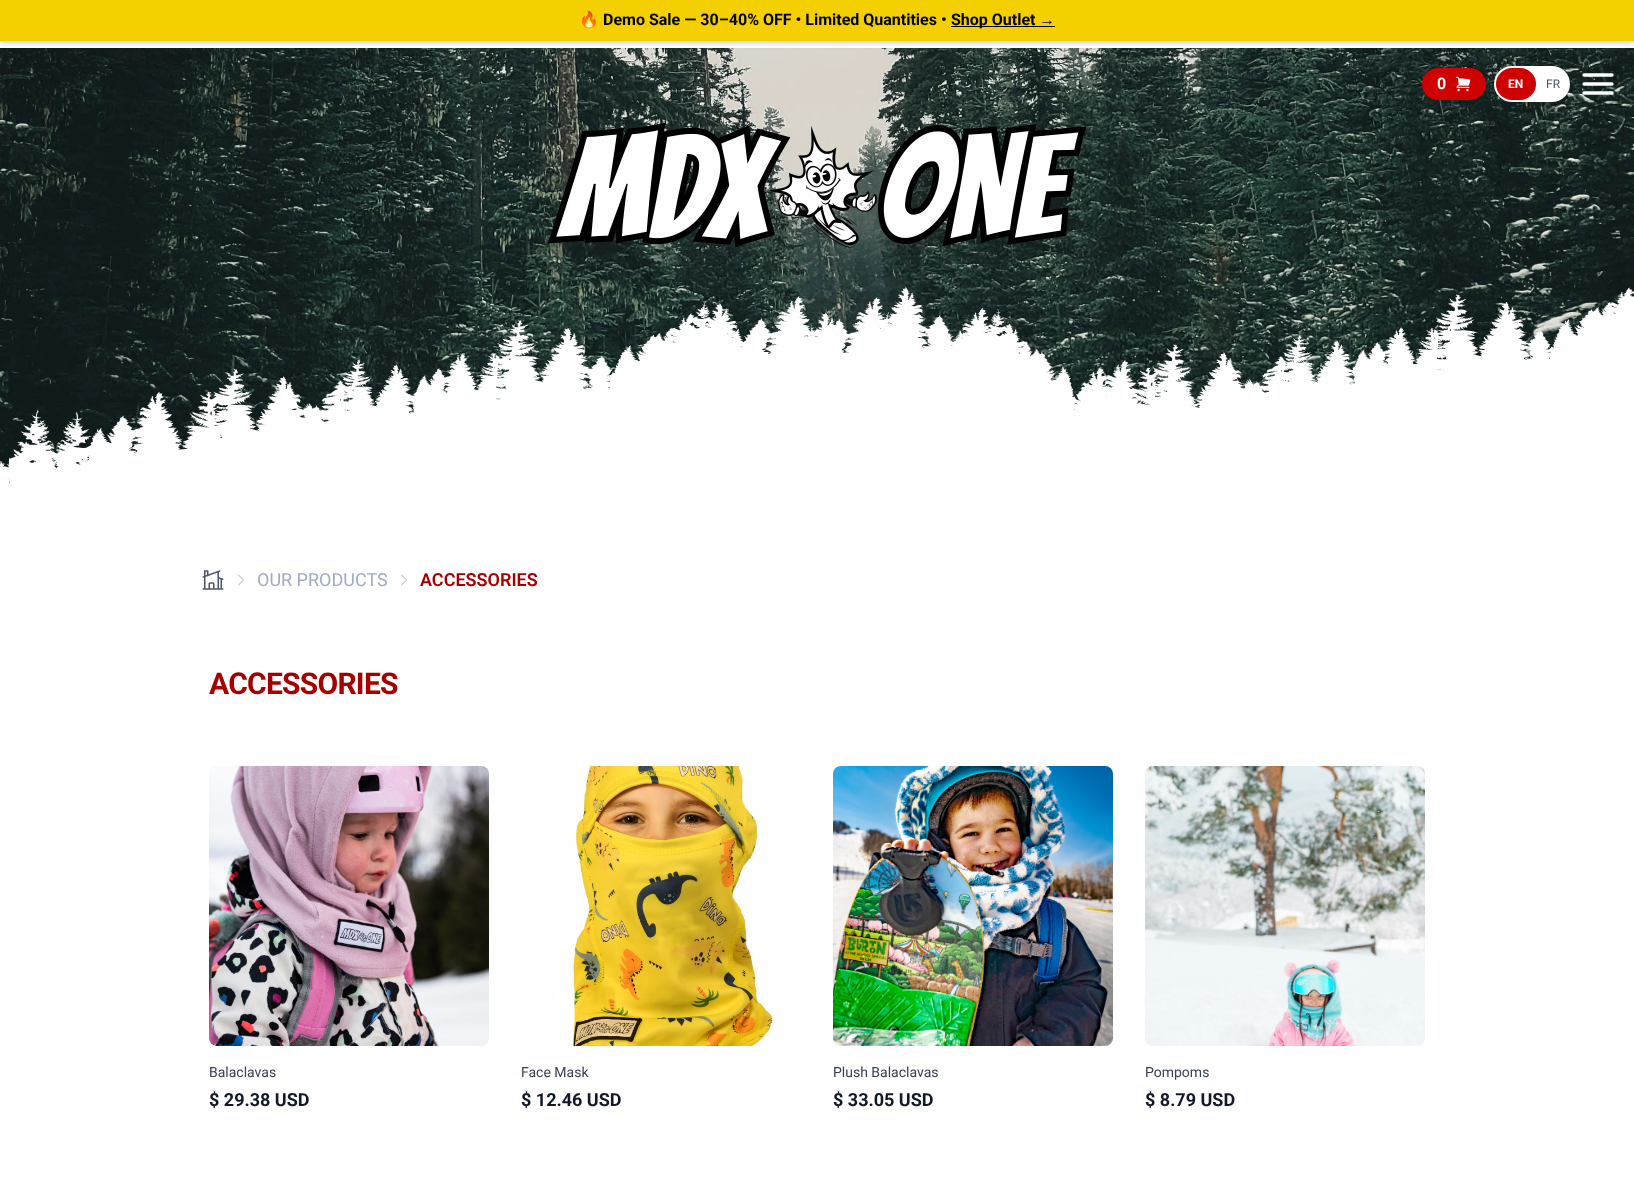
<svg xmlns="http://www.w3.org/2000/svg" width="1634" height="1194" viewBox="0 0 1634 1194">
  <defs>
    <filter id="blur1" x="-50%" y="-200%" width="200%" height="500%"><feGaussianBlur stdDeviation="3"/></filter>
    <filter id="blur2" x="-50%" y="-200%" width="200%" height="500%"><feGaussianBlur stdDeviation="2"/></filter>
  </defs>
  <rect width="100%" height="100%" fill="#ffffff"/>
  <image x="0" y="48" width="1634" height="436" href="img1.png"/>
  <rect x="0" y="2" width="1634" height="41" fill="#000000" fill-opacity="0.2" filter="url(#blur1)"/>
  <rect x="0" y="0" width="1634" height="41" fill="#f5d000"/>
  <text x="579" y="25" font-family="Noto Color Emoji" font-size="16" font-weight="bold" fill="#000000">🔥</text>
  <text x="603" y="25" font-family="Roboto" font-size="16" font-weight="bold" fill="#000000">Demo Sale — 30–40% OFF • Limited Quantities •</text>
  <rect x="951" y="26" width="104" height="1" fill="#000000"/>
  <text x="951" y="25" font-family="Roboto" font-size="16" font-weight="bold" fill="#000000">Shop Outlet</text>
  <text x="1039" y="25" font-family="Liberation Sans" font-size="16" font-weight="bold" fill="#000000">→</text>
  <rect x="1495" y="71" width="74" height="34" rx="17" fill="#000000" fill-opacity="0.1" filter="url(#blur1)"/>
  <rect x="1422" y="68" width="64" height="32" rx="16" fill="#cf0000"/>
  <text x="1437" y="89" font-family="Roboto" font-size="16" font-weight="bold" fill="#ffffff">0</text>
  <image x="1455" y="76" width="16" height="16" href="img2.png"/>
  <rect x="1496" y="70" width="72" height="32" rx="16" fill="#000000" fill-opacity="0.1" filter="url(#blur2)"/>
  <rect x="1494" y="66" width="76" height="36" rx="18" fill="#ffffff"/>
  <rect x="1496" y="68" width="40" height="32" rx="16" fill="#cf0000"/>
  <text x="1508" y="88" font-family="Roboto" font-size="12" font-weight="bold" fill="#ffffff">EN</text>
  <text x="1546" y="88" font-family="Roboto" font-size="12" fill="#4a5568">FR</text>
  <path d="M1584 75H1612M1584 84H1612M1584 93H1612" fill="none" stroke="#ffffff" stroke-width="3.3" stroke-linecap="round" stroke-linejoin="round"/>
  <image x="548" y="122" width="539" height="126" href="img3.png"/>
  <image x="0" y="287" width="1634" height="215" href="img4.png"/>
  <image x="202" y="570" width="22" height="20" href="img5.png"/>
  <path d="M238.5 575L243.5 580L238.5 585" fill="none" stroke="#a0acc0" stroke-linecap="round" stroke-linejoin="round"/>
  <text x="257" y="586" font-family="Roboto" font-size="18" fill="#a0acc0">OUR PRODUCTS</text>
  <path d="M401.5 575L406.5 580L401.5 585" fill="none" stroke="#a0acc0" stroke-linecap="round" stroke-linejoin="round"/>
  <text x="420" y="586" font-family="Roboto" font-size="18" font-weight="600" fill="#a60000">ACCESSORIES</text>
  <text x="209" y="694" font-family="Roboto" font-size="30" font-weight="bold" letter-spacing="-0.75" fill="#a60000">ACCESSORIES</text>
  <rect x="209" y="766" width="280" height="280" rx="8" fill="#f3f4f6"/>
  <image x="209" y="766" width="280" height="280" href="img6.png"/>
  <text x="209" y="1077" font-family="Roboto" font-size="14" fill="#374151">Balaclavas</text>
  <text x="209" y="1106" font-family="Roboto" font-size="18" font-weight="bold" fill="#111827">$ 29.38 USD</text>
  <rect x="521" y="766" width="280" height="280" rx="8" fill="#f3f4f6"/>
  <image x="521" y="766" width="280" height="280" href="img7.png"/>
  <text x="521" y="1077" font-family="Roboto" font-size="14" fill="#374151">Face Mask</text>
  <text x="521" y="1106" font-family="Roboto" font-size="18" font-weight="bold" fill="#111827">$ 12.46 USD</text>
  <rect x="833" y="766" width="280" height="280" rx="8" fill="#f3f4f6"/>
  <image x="833" y="766" width="280" height="280" href="img8.png"/>
  <text x="833" y="1077" font-family="Roboto" font-size="14" fill="#374151">Plush Balaclavas</text>
  <text x="833" y="1106" font-family="Roboto" font-size="18" font-weight="bold" fill="#111827">$ 33.05 USD</text>
  <rect x="1145" y="766" width="280" height="280" rx="8" fill="#f3f4f6"/>
  <image x="1145" y="766" width="280" height="280" href="img9.png"/>
  <text x="1145" y="1077" font-family="Roboto" font-size="14" fill="#374151">Pompoms</text>
  <text x="1145" y="1106" font-family="Roboto" font-size="18" font-weight="bold" fill="#111827">$ 8.79 USD</text>
</svg>
